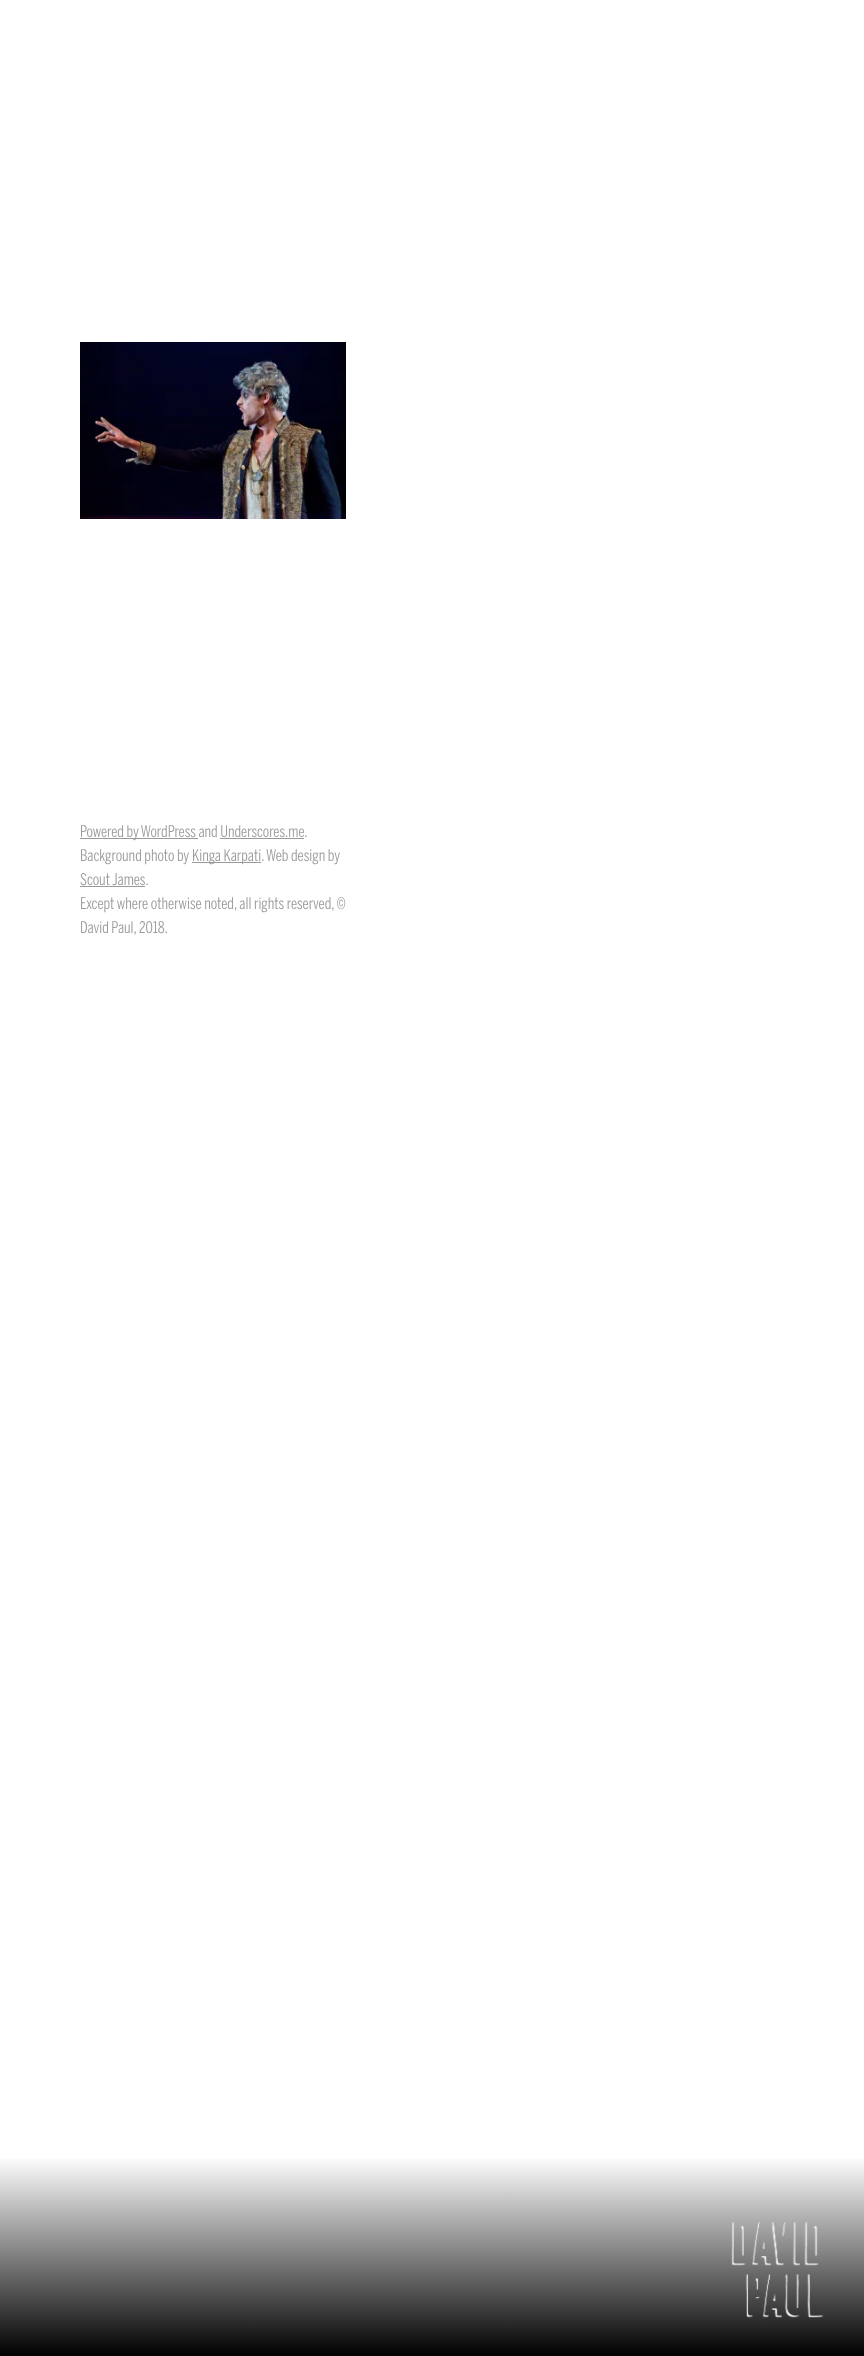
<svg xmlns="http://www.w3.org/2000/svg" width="864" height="2356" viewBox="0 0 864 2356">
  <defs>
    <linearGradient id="g1" gradientUnits="userSpaceOnUse" x1="432" y1="2156" x2="432" y2="2356"><stop offset="0" stop-color="#ffffff"/><stop offset="1" stop-color="#000000"/></linearGradient>
  </defs>
  <rect width="100%" height="100%" fill="#ffffff"/>
  <image x="80" y="342" width="266" height="177" href="img1.png"/>
  <rect x="80" y="838" width="118" height="1" fill="#9a9a9a"/>
  <text x="80" y="837" font-family="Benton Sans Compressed" font-size="16" fill="#9a9a9a">Powered by WordPress and Underscores.me.</text>
  <rect x="220" y="838" width="84" height="1" fill="#9a9a9a"/>
  <text x="80" y="861" font-family="Benton Sans Compressed" font-size="16" fill="#9a9a9a">Background photo by</text>
  <rect x="192" y="862" width="69" height="1" fill="#9a9a9a"/>
  <text x="192" y="861" font-family="Benton Sans Compressed" font-size="16" fill="#9a9a9a">Kinga Karpati. Web design by</text>
  <text x="80" y="885" font-family="Benton Sans Compressed" font-size="16" fill="#9a9a9a">Scout James.</text>
  <rect x="80" y="886" width="65" height="1" fill="#9a9a9a"/>
  <text x="80" y="909" font-family="Benton Sans Compressed" font-size="16" fill="#9a9a9a">Except where otherwise noted, all rights reserved, ©</text>
  <text x="80" y="933" font-family="Benton Sans Compressed" font-size="16" fill="#9a9a9a">David Paul, 2018.</text>
  <rect x="0" y="2158" width="864" height="198" fill="url(#g1)"/>
  <image x="731" y="2221" width="93" height="97" href="img2.png"/>
</svg>
